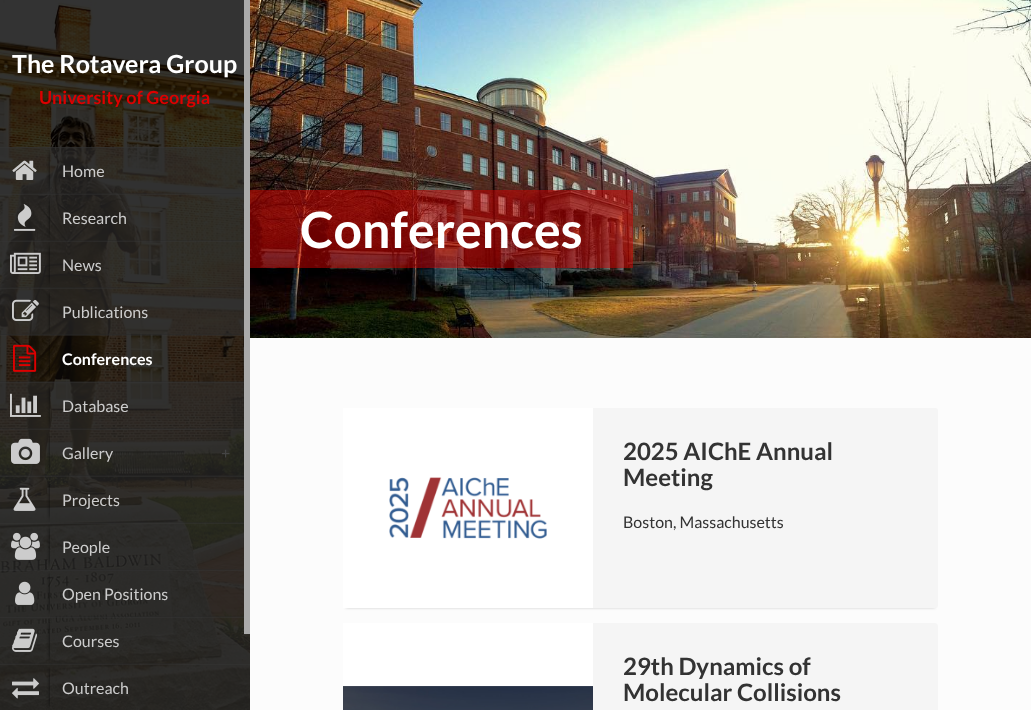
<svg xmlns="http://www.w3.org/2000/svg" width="1031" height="710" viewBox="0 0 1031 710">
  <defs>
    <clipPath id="clip1"><path d="M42 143H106V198H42ZM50 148H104V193H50Z" clip-rule="evenodd"/></clipPath>
    <filter id="blur1" x="-50%" y="-200%" width="200%" height="500%"><feGaussianBlur stdDeviation="2.5"/></filter>
    <clipPath id="clip2"><path d="M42 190H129V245H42ZM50 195H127V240H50Z" clip-rule="evenodd"/></clipPath>
    <clipPath id="clip3"><path d="M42 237H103V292H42ZM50 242H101V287H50Z" clip-rule="evenodd"/></clipPath>
    <clipPath id="clip4"><path d="M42 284H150V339H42ZM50 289H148V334H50Z" clip-rule="evenodd"/></clipPath>
    <clipPath id="clip5"><path d="M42 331H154V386H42ZM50 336H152V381H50Z" clip-rule="evenodd"/></clipPath>
    <clipPath id="clip6"><path d="M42 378H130V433H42ZM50 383H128V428H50Z" clip-rule="evenodd"/></clipPath>
    <clipPath id="clip7"><path d="M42 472H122V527H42ZM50 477H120V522H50Z" clip-rule="evenodd"/></clipPath>
    <clipPath id="clip8"><path d="M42 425H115V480H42ZM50 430H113V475H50Z" clip-rule="evenodd"/></clipPath>
    <clipPath id="clip9"><path d="M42 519H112V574H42ZM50 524H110V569H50Z" clip-rule="evenodd"/></clipPath>
    <clipPath id="clip10"><path d="M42 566H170V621H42ZM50 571H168V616H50Z" clip-rule="evenodd"/></clipPath>
    <clipPath id="clip11"><path d="M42 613H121V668H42ZM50 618H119V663H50Z" clip-rule="evenodd"/></clipPath>
    <clipPath id="clip12"><path d="M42 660H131V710H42ZM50 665H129V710H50Z" clip-rule="evenodd"/></clipPath>
    <filter id="blur2" x="-50%" y="-200%" width="200%" height="500%"><feGaussianBlur stdDeviation="1.5"/></filter>
  </defs>
  <rect width="100%" height="100%" fill="#ffffff"/>
  <image x="0" y="0" width="250" height="710" href="img1.png"/>
  <text x="12" y="73" font-family="Lato" font-size="25" font-weight="bold" fill="#ffffff">The Rotavera Group</text>
  <text x="39" y="104" font-family="Lato" font-size="18" font-weight="bold" fill="#dd0000">University of Georgia</text>
  <rect x="0" y="147" width="244" height="47" fill="#303030" fill-opacity="0.6"/>
  <rect x="0" y="147" width="250" height="1" fill="#373737" fill-opacity="0.4"/>
  <rect x="22" y="193" width="228" height="1" fill="#2b2b2b" fill-opacity="0.4"/>
  <image x="12" y="160" width="25" height="20" href="img2.png"/>
  <rect x="0" y="194" width="244" height="47" fill="#303030" fill-opacity="0.6"/>
  <rect x="0" y="194" width="220" height="1" fill="#373737" fill-opacity="0.4"/>
  <g clip-path="url(#clip1)">
    <rect x="51" y="152" width="46" height="37" fill="#000000" filter="url(#blur1)"/>
  </g>
  <text x="62" y="177" font-family="Lato" font-size="16" fill="#cccccc">Home</text>
  <rect x="12" y="240" width="238" height="1" fill="#2b2b2b" fill-opacity="0.4"/>
  <image x="14" y="204" width="22" height="27" href="img3.png"/>
  <rect x="0" y="241" width="244" height="47" fill="#303030" fill-opacity="0.6"/>
  <rect x="0" y="241" width="250" height="1" fill="#373737" fill-opacity="0.4"/>
  <g clip-path="url(#clip2)">
    <rect x="51" y="199" width="69" height="37" fill="#000000" filter="url(#blur1)"/>
  </g>
  <text x="62" y="224" font-family="Lato" font-size="16" fill="#cccccc">Research</text>
  <rect x="0" y="287" width="250" height="1" fill="#2b2b2b" fill-opacity="0.4"/>
  <image x="10" y="252" width="31" height="22" href="img4.png"/>
  <rect x="0" y="288" width="244" height="47" fill="#303030" fill-opacity="0.6"/>
  <rect x="0" y="288" width="250" height="1" fill="#373737" fill-opacity="0.4"/>
  <g clip-path="url(#clip3)">
    <rect x="51" y="246" width="43" height="37" fill="#000000" filter="url(#blur1)"/>
  </g>
  <text x="62" y="271" font-family="Lato" font-size="16" fill="#cccccc">News</text>
  <rect x="0" y="334" width="250" height="1" fill="#2b2b2b" fill-opacity="0.4"/>
  <image x="12" y="299" width="27" height="22" href="img5.png"/>
  <rect x="0" y="335" width="244" height="47" fill="#363636" fill-opacity="0.1"/>
  <rect x="0" y="335" width="250" height="1" fill="#373737" fill-opacity="0.4"/>
  <g clip-path="url(#clip4)">
    <rect x="51" y="293" width="90" height="37" fill="#000000" filter="url(#blur1)"/>
  </g>
  <text x="62" y="318" font-family="Lato" font-size="16" fill="#cccccc">Publications</text>
  <rect x="0" y="381" width="250" height="1" fill="#2b2b2b" fill-opacity="0.4"/>
  <image x="13" y="344" width="24" height="28" href="img6.png"/>
  <rect x="0" y="382" width="244" height="47" fill="#303030" fill-opacity="0.6"/>
  <rect x="0" y="382" width="250" height="1" fill="#373737" fill-opacity="0.4"/>
  <g clip-path="url(#clip5)">
    <rect x="51" y="340" width="94" height="37" fill="#000000" filter="url(#blur1)"/>
  </g>
  <text x="62" y="365" font-family="Lato" font-size="16" font-weight="bold" fill="#ffffff">Conferences</text>
  <rect x="0" y="428" width="250" height="1" fill="#2b2b2b" fill-opacity="0.4"/>
  <image x="10" y="393" width="31" height="24" href="img7.png"/>
  <g clip-path="url(#clip6)">
    <rect x="51" y="387" width="70" height="37" fill="#000000" filter="url(#blur1)"/>
  </g>
  <text x="62" y="412" font-family="Lato" font-size="16" fill="#cccccc">Database</text>
  <rect x="0" y="476" width="244" height="47" fill="#303030" fill-opacity="0.6"/>
  <rect x="0" y="476" width="250" height="1" fill="#373737" fill-opacity="0.4"/>
  <rect x="94" y="522" width="156" height="1" fill="#2b2b2b" fill-opacity="0.4"/>
  <rect x="0" y="523" width="244" height="47" fill="#303030" fill-opacity="0.6"/>
  <rect x="0" y="523" width="250" height="1" fill="#373737" fill-opacity="0.4"/>
  <g clip-path="url(#clip7)">
    <rect x="51" y="481" width="62" height="37" fill="#000000" filter="url(#blur1)"/>
  </g>
  <rect x="0" y="429" width="244" height="47" fill="#303030" fill-opacity="0.6"/>
  <rect x="0" y="429" width="250" height="1" fill="#373737" fill-opacity="0.4"/>
  <rect x="0" y="475" width="250" height="1" fill="#2b2b2b" fill-opacity="0.4"/>
  <image x="11" y="438" width="29" height="26" href="img8.png"/>
  <g clip-path="url(#clip8)">
    <rect x="51" y="434" width="55" height="37" fill="#000000" filter="url(#blur1)"/>
  </g>
  <text x="62" y="459" font-family="Lato" font-size="16" fill="#cccccc">Gallery</text>
  <text x="221" y="459" font-family="Lato" font-size="16" fill="#454545">+</text>
  <image x="13" y="487" width="23" height="24" href="img9.png"/>
  <text x="62" y="506" font-family="Lato" font-size="16" fill="#cccccc">Projects</text>
  <rect x="0" y="569" width="250" height="1" fill="#2b2b2b" fill-opacity="0.4"/>
  <image x="11" y="532" width="29" height="28" href="img10.png"/>
  <rect x="0" y="570" width="244" height="47" fill="#303030" fill-opacity="0.6"/>
  <rect x="0" y="570" width="250" height="1" fill="#373737" fill-opacity="0.4"/>
  <g clip-path="url(#clip9)">
    <rect x="51" y="528" width="52" height="37" fill="#000000" filter="url(#blur1)"/>
  </g>
  <text x="62" y="553" font-family="Lato" font-size="16" fill="#cccccc">People</text>
  <rect x="56" y="616" width="194" height="1" fill="#2b2b2b" fill-opacity="0.4"/>
  <image x="15" y="581" width="20" height="24" href="img11.png"/>
  <rect x="0" y="617" width="250" height="47" fill="#303030" fill-opacity="0.6"/>
  <rect x="0" y="617" width="250" height="1" fill="#373737" fill-opacity="0.4"/>
  <g clip-path="url(#clip10)">
    <rect x="51" y="575" width="110" height="37" fill="#000000" filter="url(#blur1)"/>
  </g>
  <text x="62" y="600" font-family="Lato" font-size="16" fill="#cccccc">Open Positions</text>
  <rect x="0" y="663" width="180" height="1" fill="#2b2b2b" fill-opacity="0.4"/>
  <image x="12" y="628" width="25" height="24" href="img12.png"/>
  <rect x="0" y="664" width="250" height="46" fill="#303030" fill-opacity="0.6"/>
  <rect x="0" y="664" width="250" height="1" fill="#373737" fill-opacity="0.4"/>
  <g clip-path="url(#clip11)">
    <rect x="51" y="622" width="61" height="37" fill="#000000" filter="url(#blur1)"/>
  </g>
  <text x="62" y="647" font-family="Lato" font-size="16" fill="#cccccc">Courses</text>
  <image x="12" y="678" width="27" height="21" href="img13.png"/>
  <g clip-path="url(#clip12)">
    <rect x="51" y="669" width="71" height="37" fill="#000000" filter="url(#blur1)"/>
  </g>
  <text x="62" y="694" font-family="Lato" font-size="16" fill="#cccccc">Outreach</text>
  <rect x="244" y="0" width="6" height="634" fill="#aaaaaa"/>
  <image x="250" y="0" width="781" height="338" href="img14.png"/>
  <rect x="250" y="190" width="383" height="78" fill="#d30000" fill-opacity="0.5"/>
  <text x="300" y="248" font-family="Lato" font-size="50" font-weight="bold" fill="#ffffff">Conferences</text>
  <rect x="250" y="338" width="781" height="372" fill="#fcfcfc"/>
  <rect x="346" y="414" width="589" height="194" fill="#cccccc" filter="url(#blur2)"/>
  <rect x="343" y="408" width="595" height="200" rx="3" fill="#f5f5f5"/>
  <image x="343" y="408" width="250" height="200" href="img15.png"/>
  <text x="623" y="460" font-family="Lato" font-size="24" font-weight="bold" fill="#333333">2025 AIChE Annual</text>
  <text x="623" y="486" font-family="Lato" font-size="24" font-weight="bold" fill="#333333">Meeting</text>
  <text x="623" y="528" font-family="Lato" font-size="16" fill="#333333">Boston, Massachusetts</text>
  <path d="M346 623H935C936.5 623 938 624.5 938 626V710H343V626C343 624.5 344.5 623 346 623Z" fill="#f5f5f5"/>
  <image x="343" y="623" width="250" height="87" href="img16.png"/>
  <text x="623" y="675" font-family="Lato" font-size="24" font-weight="bold" fill="#333333">29th Dynamics of</text>
  <text x="623" y="701" font-family="Lato" font-size="24" font-weight="bold" fill="#333333">Molecular Collisions</text>
</svg>
